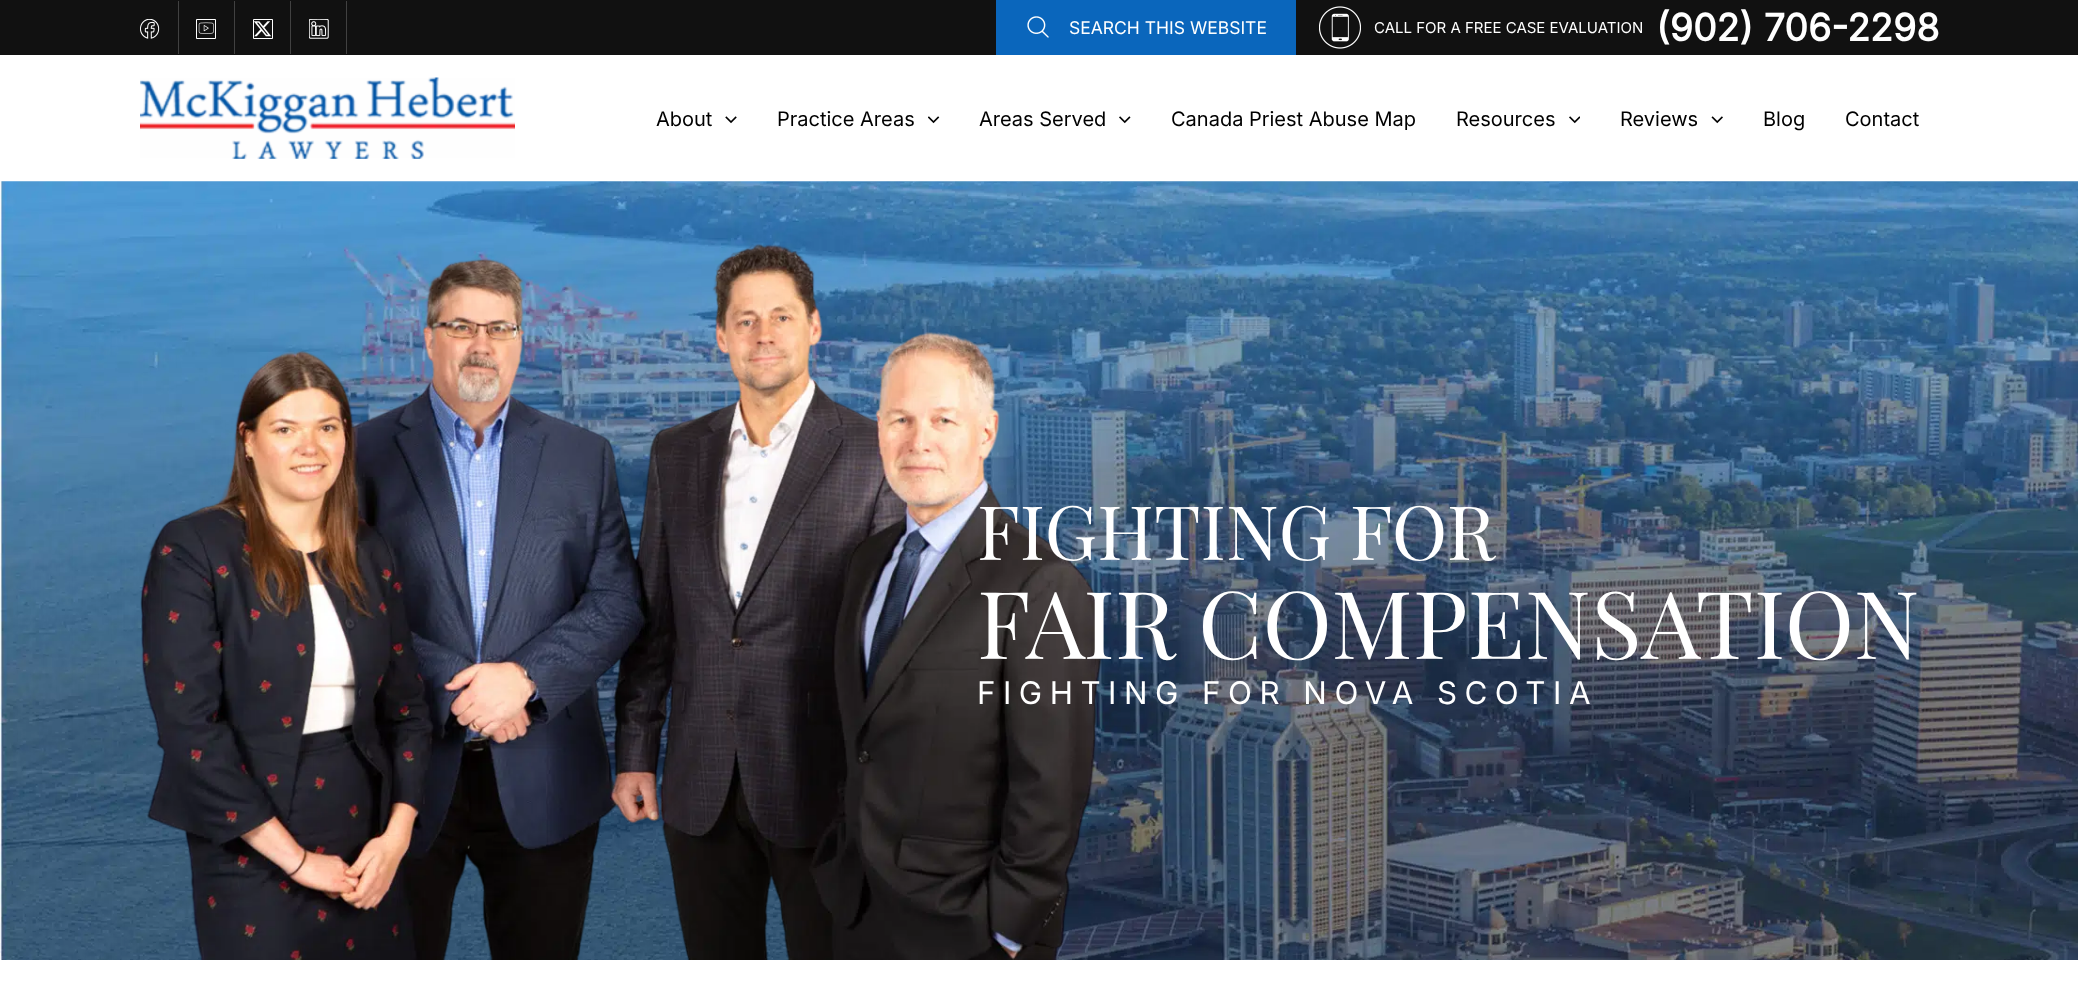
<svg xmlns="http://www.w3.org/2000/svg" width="2078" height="1007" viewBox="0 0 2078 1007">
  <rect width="100%" height="100%" fill="#ffffff"/>
  <rect x="0" y="0" width="2078" height="55" fill="#111111"/>
  <rect x="178" y="1" width="1" height="53" fill="#414141"/>
  <image x="140" y="19" width="20" height="20" href="img1.png"/>
  <rect x="234" y="1" width="1" height="53" fill="#414141"/>
  <image x="196" y="19" width="20" height="20" href="img2.png"/>
  <rect x="290" y="1" width="1" height="53" fill="#414141"/>
  <image x="253" y="19" width="20" height="20" href="img3.png"/>
  <rect x="346" y="1" width="1" height="53" fill="#414141"/>
  <image x="309" y="19" width="20" height="20" href="img4.png"/>
  <rect x="996" y="0" width="300" height="55" fill="#0a66bc"/>
  <image x="1027" y="16" width="22" height="22" href="img5.png"/>
  <text x="1069" y="34" font-family="Inter" font-size="17.5" fill="#ffffff">SEARCH THIS WEBSITE</text>
  <image x="1319" y="6" width="42" height="43" href="img6.png"/>
  <text x="1374" y="33" font-family="Inter" font-size="15" fill="#ffffff">CALL FOR A FREE CASE EVALUATION</text>
  <text x="1656" y="41" font-family="Inter" font-size="37.5" font-weight="bold" fill="#ffffff">(902) 706-2298</text>
  <image x="140" y="77" width="375" height="82" href="img7.png"/>
  <text x="656" y="126" font-family="Inter" font-size="20" fill="#000000">About</text>
  <image x="725" y="116" width="12" height="8" href="img8.png"/>
  <text x="777" y="126" font-family="Inter" font-size="20" fill="#000000">Practice Areas</text>
  <image x="928" y="116" width="12" height="8" href="img9.png"/>
  <text x="979" y="126" font-family="Inter" font-size="20" fill="#000000">Areas Served</text>
  <image x="1119" y="116" width="12" height="8" href="img10.png"/>
  <text x="1171" y="126" font-family="Inter" font-size="20" fill="#000000">Canada Priest Abuse Map</text>
  <text x="1456" y="126" font-family="Inter" font-size="20" fill="#000000">Resources</text>
  <image x="1569" y="116" width="11" height="8" href="img11.png"/>
  <text x="1620" y="126" font-family="Inter" font-size="20" fill="#000000">Reviews</text>
  <image x="1711" y="116" width="12" height="8" href="img12.png"/>
  <text x="1763" y="126" font-family="Inter" font-size="20" fill="#000000">Blog</text>
  <text x="1845" y="126" font-family="Inter" font-size="20" fill="#000000">Contact</text>
  <image x="0" y="181" width="2078" height="779" href="img13.png"/>
  <image x="140" y="243" width="962" height="717" href="img14.png"/>
  <text x="977" y="560" font-family="Playfair Display" font-size="75" fill="#ffffff">FIGHTING FOR</text>
  <text x="977" y="659" font-family="Playfair Display" font-size="93.75" fill="#ffffff">FAIR COMPENSATION</text>
  <text x="977" y="704" font-family="Inter" font-size="31.25" letter-spacing="7.5" fill="#ffffff">FIGHTING FOR NOVA SCOTIA</text>
</svg>
